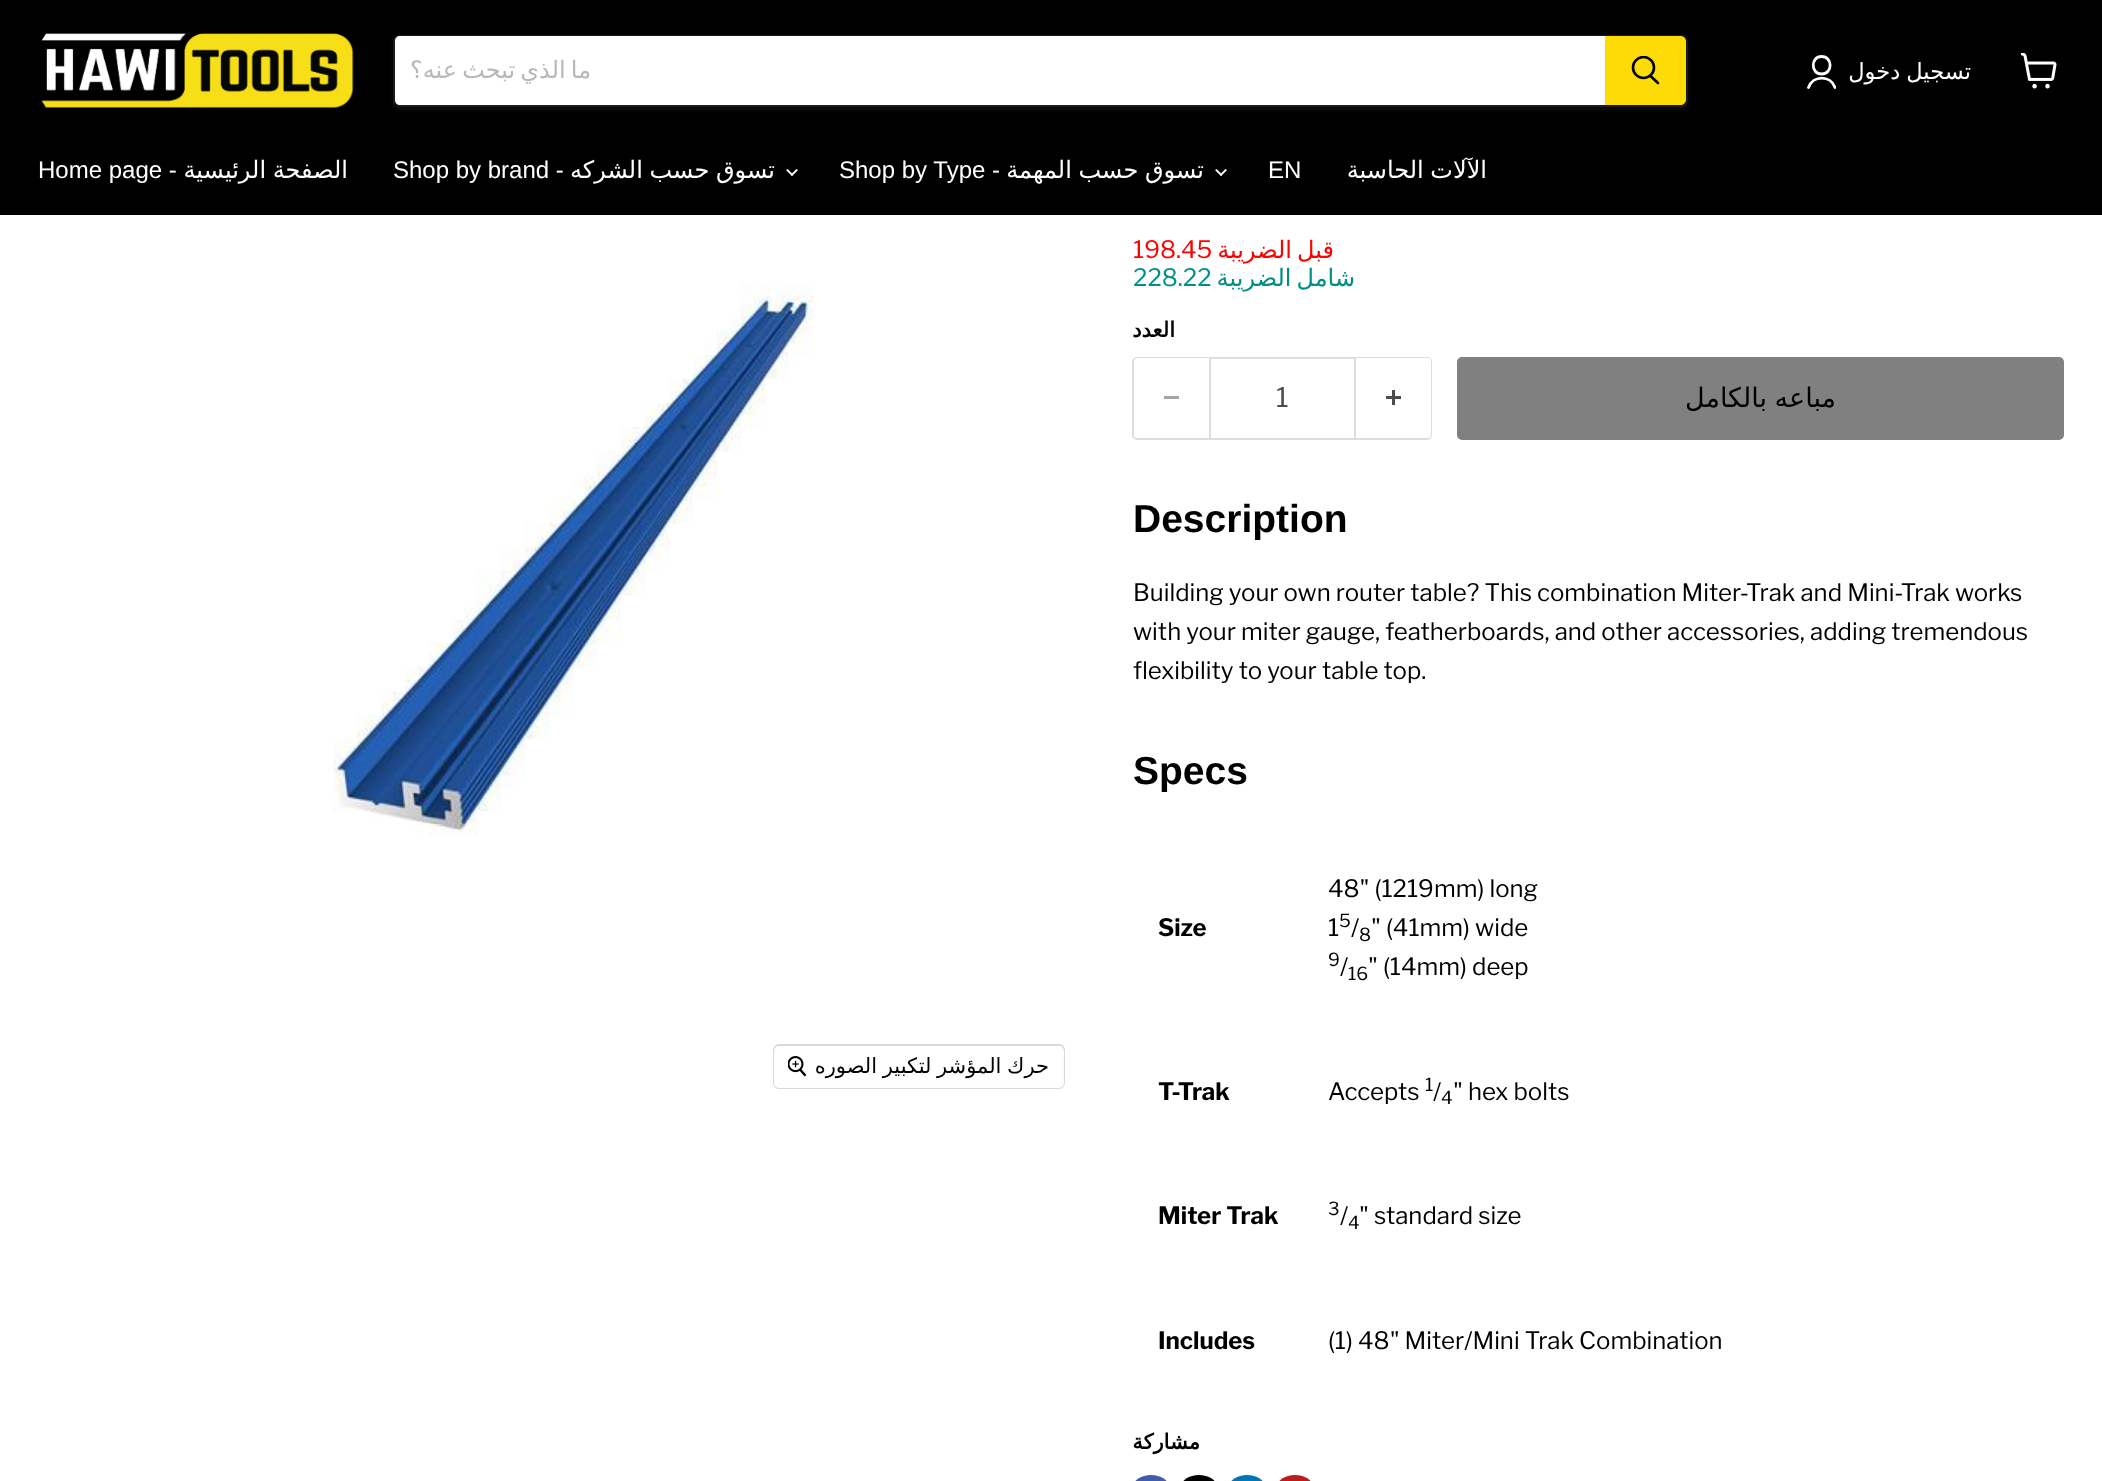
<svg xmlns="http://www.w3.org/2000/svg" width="2102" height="1481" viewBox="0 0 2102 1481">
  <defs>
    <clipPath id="clip1"><path d="M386 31H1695V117H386ZM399 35H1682C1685.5 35 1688 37.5 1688 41V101C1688 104.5 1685.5 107 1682 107H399C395.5 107 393 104.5 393 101V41C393 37.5 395.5 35 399 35Z" clip-rule="evenodd"/></clipPath>
    <filter id="blur1" x="-50%" y="-200%" width="200%" height="500%"><feGaussianBlur stdDeviation="2"/></filter>
    <clipPath id="clip2"><rect x="1631" y="56" width="30" height="31"/></clipPath>
    <clipPath id="clip3"><rect x="1806" y="54" width="30" height="35"/></clipPath>
  </defs>
  <rect width="100%" height="100%" fill="#ffffff"/>
  <rect x="0" y="0" width="2102" height="215" fill="#000000"/>
  <image x="41" y="33" width="313" height="75" href="img1.png"/>
  <g clip-path="url(#clip1)">
    <rect x="393" y="38" width="1295" height="72" rx="6" fill="#808080" fill-opacity="0.11" filter="url(#blur1)"/>
  </g>
  <rect x="394" y="36" width="1293" height="70" rx="5" fill="none" stroke="#808080" stroke-opacity="0.2" stroke-width="2"/>
  <path d="M400 36H1605V105H400C397 105 395 103 395 100V41C395 38 397 36 400 36Z" fill="#ffffff"/>
  <text x="591" y="78" word-spacing="-2.5" font-family="DejaVu Sans" font-size="24" direction="rtl" fill="#b8b8b8">ما الذي تبحث عنه؟</text>
  <path d="M1606 37H1681C1683 37 1685 39 1685 41V100C1685 102 1683 104 1681 104H1606Z" fill="#fcdc04" stroke="#fcdc04" stroke-width="2"/>
  <path d="M1658 83L1650.5 76" fill="none" stroke="#000000" stroke-width="2.6" stroke-linecap="round"/>
  <g clip-path="url(#clip2)">
    <circle cx="1643.5" cy="67.5" r="10.5" fill="none" stroke="#000000" stroke-width="2.6"/>
  </g>
  <path d="M1821.5 74C1833 74 1833 56.5 1821.5 56.5C1810.5 56.5 1810.5 74 1821.5 74Z" fill="none" stroke="#ffffff" stroke-width="2.8" stroke-linecap="round" stroke-linejoin="round"/>
  <g clip-path="url(#clip3)">
    <path d="M1835 87.5C1830.5 75 1813 75 1808.5 87.5" fill="none" stroke="#ffffff" stroke-width="2.8" stroke-linecap="round" stroke-linejoin="round"/>
  </g>
  <text x="1971" y="79" word-spacing="-1" font-family="DejaVu Sans" font-size="22.5" direction="rtl" fill="#ffffff">تسجيل دخول</text>
  <image x="2021" y="53" width="36" height="36" href="img2.png"/>
  <text x="38" y="178" font-family="Liberation Sans" font-size="24" fill="#ffffff">Home page -</text>
  <text x="348" y="178" word-spacing="-1" font-family="DejaVu Sans" font-size="24" direction="rtl" fill="#ffffff">الصفحة الرئيسية</text>
  <text x="393" y="178" font-family="Liberation Sans" font-size="24" fill="#ffffff">Shop by brand -</text>
  <text x="775" y="178" word-spacing="-1" font-family="DejaVu Sans" font-size="24" direction="rtl" fill="#ffffff">تسوق حسب الشركه</text>
  <image x="786" y="169" width="12" height="7" href="img3.png"/>
  <text x="839" y="178" font-family="Liberation Sans" font-size="24" fill="#ffffff">Shop by Type -</text>
  <text x="1204" y="178" word-spacing="-1" font-family="DejaVu Sans" font-size="24" direction="rtl" fill="#ffffff">تسوق حسب المهمة</text>
  <image x="1215" y="169" width="12" height="7" href="img3.png"/>
  <text x="1268" y="178" font-family="Liberation Sans" font-size="24" fill="#ffffff">EN</text>
  <text x="1487" y="178" word-spacing="-1" font-family="DejaVu Sans" font-size="24" direction="rtl" fill="#ffffff">الآلات الحاسبة</text>
  <image x="333" y="283" width="481" height="553" href="img4.png"/>
  <rect x="774" y="1045" width="290" height="43" rx="5" fill="none" stroke="#d9d9d9" stroke-width="2"/>
  <rect x="774" y="1046" width="290" height="42" rx="5" fill="#ffffff" fill-opacity="0.9"/>
  <image x="788" y="1056" width="19" height="21" href="img5.png"/>
  <text x="1049" y="1073" word-spacing="-1" font-family="DejaVu Sans" font-size="21" direction="rtl" fill="#000000">حرك المؤشر لتكبير الصوره</text>
  <text x="1133" y="258" font-family="Libre Franklin" font-size="24" fill="#ff0000">198.45</text>
  <text x="1334" y="258" word-spacing="-2.5" font-family="DejaVu Sans" font-size="24" direction="rtl" fill="#ff0000">قبل الضريبة</text>
  <text x="1133" y="286" font-family="Libre Franklin" font-size="24" fill="#008f86">228.22</text>
  <text x="1355" y="286" word-spacing="-2.5" font-family="DejaVu Sans" font-size="24" direction="rtl" fill="#008f86">شامل الضريبة</text>
  <text x="1175" y="337" font-family="DejaVu Sans" font-size="21" font-weight="bold" direction="rtl" fill="#000000">العدد</text>
  <path d="M1137 357H1209V440H1137C1135 440 1132 437 1132 435V362C1132 359 1135 357 1137 357ZM1137 358H1209V438H1137C1135 438 1134 437 1134 435V362C1134 360 1135 358 1137 358Z" fill="#dddddd" fill-rule="evenodd"/>
  <rect x="1164" y="396" width="15" height="3" fill="#a6a6a6"/>
  <rect x="1210" y="358" width="145" height="81" fill="none" stroke="#dddddd" stroke-width="2"/>
  <text x="1276" y="407" font-family="Libre Franklin" font-size="27" fill="#4d4d4d">1</text>
  <path d="M1356 357H1428C1430 357 1432 359 1432 362V435C1432 437 1430 440 1428 440H1356ZM1356 358H1428C1430 358 1431 360 1431 362V435C1431 437 1430 438 1428 438H1356Z" fill="#dddddd" fill-rule="evenodd"/>
  <image x="1386" y="390" width="15" height="15" href="img6.png"/>
  <rect x="1458" y="358" width="605" height="81" rx="4" fill="#808080" stroke="#808080" stroke-width="2"/>
  <text x="1836" y="407" word-spacing="-1" font-family="DejaVu Sans" font-size="27" direction="rtl" fill="#000000">مباعه بالكامل</text>
  <text x="1133" y="532" font-family="Arimo" font-size="39" font-weight="bold" fill="#000000">Description</text>
  <text x="1133" y="601" font-family="Libre Franklin" font-size="24" fill="#000000">Building your own router table? This combination Miter-Trak and Mini-Trak works</text>
  <text x="1133" y="640" font-family="Libre Franklin" font-size="24" fill="#000000">with your miter gauge, featherboards, and other accessories, adding tremendous</text>
  <text x="1133" y="679" font-family="Libre Franklin" font-size="24" fill="#000000">flexibility to your table top.</text>
  <text x="1133" y="784" font-family="Arimo" font-size="39" font-weight="bold" fill="#000000">Specs</text>
  <text x="1158" y="936" font-family="Libre Franklin" font-size="24" font-weight="bold" fill="#000000">Size</text>
  <text x="1328" y="897" font-family="Libre Franklin" font-size="24" fill="#000000">48" (1219mm) long</text>
  <text x="1328" y="936" font-family="Libre Franklin" font-size="24" fill="#000000">1</text>
  <text x="1339" y="927" font-family="Libre Franklin" font-size="18" fill="#000000">5</text>
  <text x="1351" y="936" font-family="Libre Franklin" font-size="24" fill="#000000">/</text>
  <text x="1359" y="941" font-family="Libre Franklin" font-size="18" fill="#000000">8</text>
  <text x="1371" y="936" font-family="Libre Franklin" font-size="24" fill="#000000">" (41mm) wide</text>
  <text x="1328" y="966" font-family="Libre Franklin" font-size="18" fill="#000000">9</text>
  <text x="1340" y="975" font-family="Libre Franklin" font-size="24" fill="#000000">/</text>
  <text x="1348" y="980" font-family="Libre Franklin" font-size="18" fill="#000000">16</text>
  <text x="1368" y="975" font-family="Libre Franklin" font-size="24" fill="#000000">" (14mm) deep</text>
  <text x="1158" y="1100" font-family="Libre Franklin" font-size="24" font-weight="bold" fill="#000000">T-Trak</text>
  <text x="1328" y="1100" font-family="Libre Franklin" font-size="24" fill="#000000">Accepts</text>
  <text x="1425" y="1091" font-family="Libre Franklin" font-size="18" fill="#000000">1</text>
  <text x="1433" y="1100" font-family="Libre Franklin" font-size="24" fill="#000000">/</text>
  <text x="1441" y="1104" font-family="Libre Franklin" font-size="18" fill="#000000">4</text>
  <text x="1453" y="1100" font-family="Libre Franklin" font-size="24" fill="#000000">" hex bolts</text>
  <text x="1158" y="1224" font-family="Libre Franklin" font-size="24" font-weight="bold" fill="#000000">Miter Trak</text>
  <text x="1328" y="1215" font-family="Libre Franklin" font-size="18" fill="#000000">3</text>
  <text x="1340" y="1224" font-family="Libre Franklin" font-size="24" fill="#000000">/</text>
  <text x="1348" y="1229" font-family="Libre Franklin" font-size="18" fill="#000000">4</text>
  <text x="1359" y="1224" font-family="Libre Franklin" font-size="24" fill="#000000">" standard size</text>
  <text x="1158" y="1349" font-family="Libre Franklin" font-size="24" font-weight="bold" fill="#000000">Includes</text>
  <text x="1328" y="1349" font-family="Libre Franklin" font-size="24" fill="#000000">(1) 48" Miter/Mini Trak Combination</text>
  <text x="1200" y="1449" font-family="DejaVu Sans" font-size="21" font-weight="bold" direction="rtl" fill="#000000">مشاركة</text>
  <rect x="1133" y="1475" width="36" height="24" rx="18" fill="#425dab"/>
  <rect x="1181" y="1475" width="36" height="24" rx="18" fill="#000000"/>
  <rect x="1229" y="1475" width="36" height="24" rx="18" fill="#0077b5"/>
  <rect x="1277" y="1475" width="36" height="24" rx="18" fill="#bd1c1c"/>
</svg>
